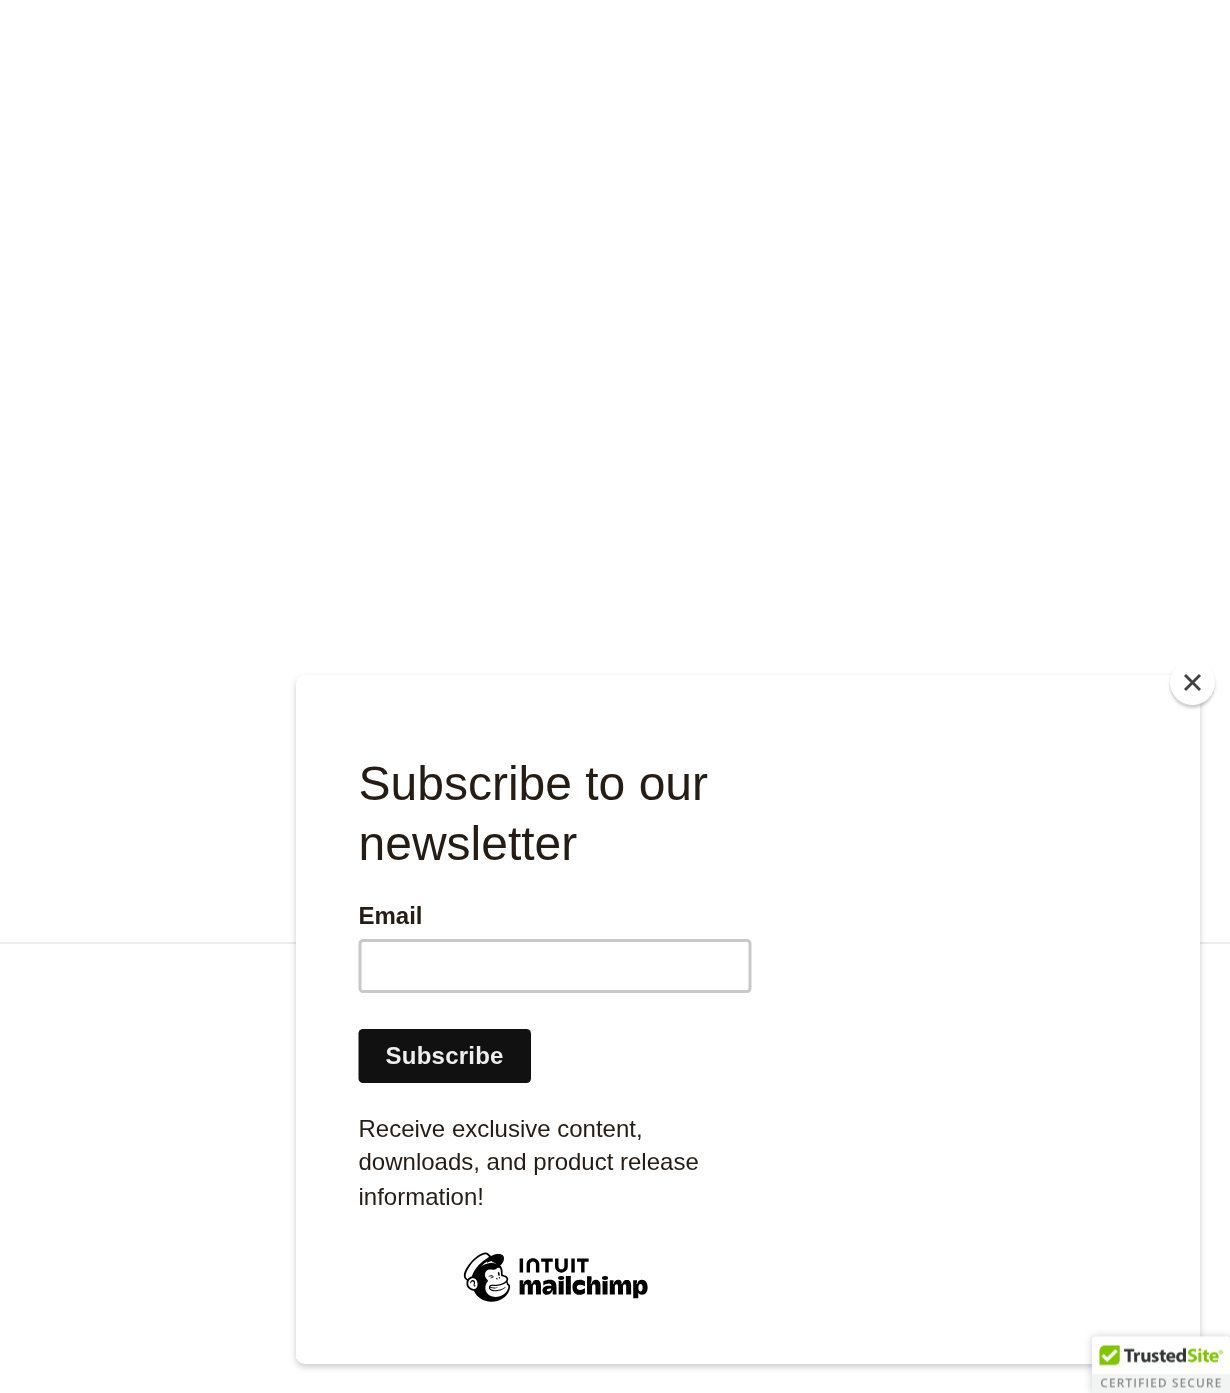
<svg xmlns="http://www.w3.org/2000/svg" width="1230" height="1393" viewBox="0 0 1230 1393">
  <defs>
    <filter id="blur1" x="-50%" y="-200%" width="200%" height="500%"><feGaussianBlur stdDeviation="3"/></filter>
    <filter id="blur2" x="-50%" y="-200%" width="200%" height="500%"><feGaussianBlur stdDeviation="1.5"/></filter>
    <filter id="blur3" x="-50%" y="-200%" width="200%" height="500%"><feGaussianBlur stdDeviation="4"/></filter>
  </defs>
  <rect width="100%" height="100%" fill="#ffffff"/>
  <rect x="0" y="942" width="1230" height="2" fill="#ececec"/>
  <rect x="296" y="678" width="904" height="689" rx="9" fill="#000000" fill-opacity="0.2" filter="url(#blur1)"/>
  <rect x="296" y="675" width="904" height="689" rx="9" fill="#ffffff"/>
  <rect x="1170" y="663" width="45" height="45" rx="22.5" fill="#000000" fill-opacity="0.2" filter="url(#blur2)"/>
  <circle cx="1192.5" cy="682.5" r="22.5" fill="#ffffff"/>
  <path d="M1199 674L1201 676L1186 691L1184 689Z" fill="#414141"/>
  <path d="M1184 676L1186 674L1201 689L1199 691Z" fill="#414141"/>
  <image x="296" y="765" width="456" height="594" href="img1.png"/>
  <rect x="1092" y="1337" width="138" height="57" rx="3" fill="#000000" fill-opacity="0.2" filter="url(#blur3)"/>
  <path d="M1095 1337H1230V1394H1092V1340C1092 1338.5 1093.5 1337 1095 1337Z" fill="#ffffff"/>
  <image x="1092" y="1336" width="138" height="57" href="img2.png"/>
</svg>
